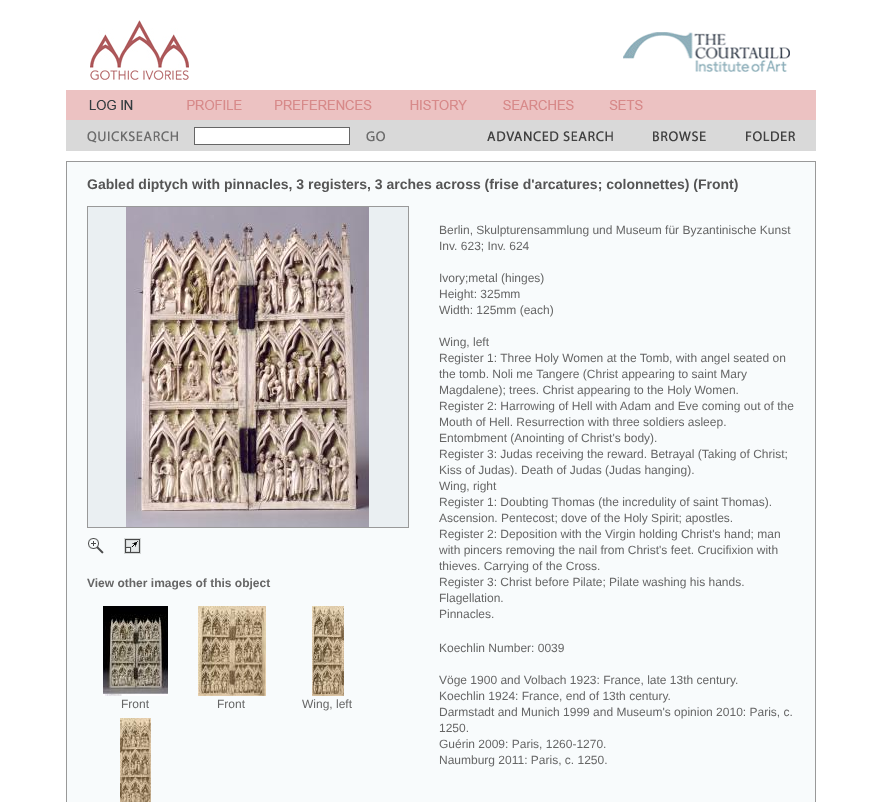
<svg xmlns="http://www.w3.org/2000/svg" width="881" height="802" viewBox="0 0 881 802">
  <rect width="100%" height="100%" fill="#ffffff"/>
  <image x="90" y="20" width="99" height="60" href="img1.png"/>
  <image x="623" y="32" width="167" height="40" href="img2.png"/>
  <rect x="66" y="90" width="750" height="30" fill="#ecc2c2"/>
  <image x="89" y="100" width="44" height="10" href="img3.png"/>
  <image x="187" y="100" width="55" height="10" href="img4.png"/>
  <image x="275" y="100" width="97" height="10" href="img5.png"/>
  <image x="410" y="100" width="57" height="10" href="img6.png"/>
  <image x="503" y="100" width="71" height="10" href="img7.png"/>
  <image x="609" y="100" width="34" height="10" href="img8.png"/>
  <rect x="66" y="120" width="750" height="31" fill="#d9d9d9"/>
  <image x="87" y="131" width="91" height="12" href="img9.png"/>
  <rect x="194.5" y="127.5" width="155" height="17" fill="#ffffff" stroke="#666666"/>
  <image x="366" y="131" width="19" height="11" href="img10.png"/>
  <image x="487" y="131" width="126" height="11" href="img11.png"/>
  <image x="653" y="131" width="53" height="11" href="img12.png"/>
  <image x="746" y="131" width="49" height="11" href="img13.png"/>
  <rect x="66" y="161" width="750" height="641" fill="#999999"/>
  <rect x="67" y="162" width="748" height="640" fill="#f8fbfc"/>
  <text x="87" y="189" font-family="Liberation Sans" font-size="14" font-weight="bold" fill="#555555">Gabled diptych with pinnacles, 3 registers, 3 arches across (frise d'arcatures; colonnettes) (Front)</text>
  <rect x="87" y="206" width="322" height="322" fill="#999999"/>
  <rect x="88" y="207" width="320" height="320" fill="#eaeff2"/>
  <image x="126" y="207" width="243" height="320" href="img14.png"/>
  <image x="88" y="538" width="16" height="16" href="img15.png"/>
  <image x="124" y="538" width="17" height="16" href="img16.png"/>
  <text x="87" y="587" font-family="Liberation Sans" font-size="12" font-weight="bold" fill="#666666">View other images of this object</text>
  <image x="103" y="606" width="65" height="90" href="img17.png"/>
  <text x="121" y="708" font-family="Liberation Sans" font-size="12" fill="#666666">Front</text>
  <image x="198" y="606" width="68" height="90" href="img18.png"/>
  <text x="217" y="708" font-family="Liberation Sans" font-size="12" fill="#666666">Front</text>
  <image x="312" y="606" width="32" height="90" href="img19.png"/>
  <text x="302" y="708" font-family="Liberation Sans" font-size="12" fill="#666666">Wing, left</text>
  <image x="120" y="718" width="31" height="84" href="img20.png"/>
  <text x="439" y="234" font-family="Liberation Sans" font-size="12" fill="#666666">Berlin, Skulpturensammlung und Museum für Byzantinische Kunst</text>
  <text x="439" y="250" font-family="Liberation Sans" font-size="12" fill="#666666">Inv. 623; Inv. 624</text>
  <text x="439" y="282" font-family="Liberation Sans" font-size="12" fill="#666666">Ivory;metal (hinges)</text>
  <text x="439" y="298" font-family="Liberation Sans" font-size="12" fill="#666666">Height: 325mm</text>
  <text x="439" y="314" font-family="Liberation Sans" font-size="12" fill="#666666">Width: 125mm (each)</text>
  <text x="439" y="346" font-family="Liberation Sans" font-size="12" fill="#666666">Wing, left</text>
  <text x="439" y="362" font-family="Liberation Sans" font-size="12" fill="#666666">Register 1: Three Holy Women at the Tomb, with angel seated on</text>
  <text x="439" y="378" font-family="Liberation Sans" font-size="12" fill="#666666">the tomb. Noli me Tangere (Christ appearing to saint Mary</text>
  <text x="439" y="394" font-family="Liberation Sans" font-size="12" fill="#666666">Magdalene); trees. Christ appearing to the Holy Women.</text>
  <text x="439" y="410" font-family="Liberation Sans" font-size="12" fill="#666666">Register 2: Harrowing of Hell with Adam and Eve coming out of the</text>
  <text x="439" y="426" font-family="Liberation Sans" font-size="12" fill="#666666">Mouth of Hell. Resurrection with three soldiers asleep.</text>
  <text x="439" y="442" font-family="Liberation Sans" font-size="12" fill="#666666">Entombment (Anointing of Christ's body).</text>
  <text x="439" y="458" font-family="Liberation Sans" font-size="12" fill="#666666">Register 3: Judas receiving the reward. Betrayal (Taking of Christ;</text>
  <text x="439" y="474" font-family="Liberation Sans" font-size="12" fill="#666666">Kiss of Judas). Death of Judas (Judas hanging).</text>
  <text x="439" y="490" font-family="Liberation Sans" font-size="12" fill="#666666">Wing, right</text>
  <text x="439" y="506" font-family="Liberation Sans" font-size="12" fill="#666666">Register 1: Doubting Thomas (the incredulity of saint Thomas).</text>
  <text x="439" y="522" font-family="Liberation Sans" font-size="12" fill="#666666">Ascension. Pentecost; dove of the Holy Spirit; apostles.</text>
  <text x="439" y="538" font-family="Liberation Sans" font-size="12" fill="#666666">Register 2: Deposition with the Virgin holding Christ's hand; man</text>
  <text x="439" y="554" font-family="Liberation Sans" font-size="12" fill="#666666">with pincers removing the nail from Christ's feet. Crucifixion with</text>
  <text x="439" y="570" font-family="Liberation Sans" font-size="12" fill="#666666">thieves. Carrying of the Cross.</text>
  <text x="439" y="586" font-family="Liberation Sans" font-size="12" fill="#666666">Register 3: Christ before Pilate; Pilate washing his hands.</text>
  <text x="439" y="602" font-family="Liberation Sans" font-size="12" fill="#666666">Flagellation.</text>
  <text x="439" y="618" font-family="Liberation Sans" font-size="12" fill="#666666">Pinnacles.</text>
  <text x="439" y="652" font-family="Liberation Sans" font-size="12" fill="#666666">Koechlin Number: 0039</text>
  <text x="439" y="684" font-family="Liberation Sans" font-size="12" fill="#666666">Vöge 1900 and Volbach 1923: France, late 13th century.</text>
  <text x="439" y="700" font-family="Liberation Sans" font-size="12" fill="#666666">Koechlin 1924: France, end of 13th century.</text>
  <text x="439" y="716" font-family="Liberation Sans" font-size="12" fill="#666666">Darmstadt and Munich 1999 and Museum's opinion 2010: Paris, c.</text>
  <text x="439" y="732" font-family="Liberation Sans" font-size="12" fill="#666666">1250.</text>
  <text x="439" y="748" font-family="Liberation Sans" font-size="12" fill="#666666">Guérin 2009: Paris, 1260-1270.</text>
  <text x="439" y="764" font-family="Liberation Sans" font-size="12" fill="#666666">Naumburg 2011: Paris, c. 1250.</text>
</svg>
